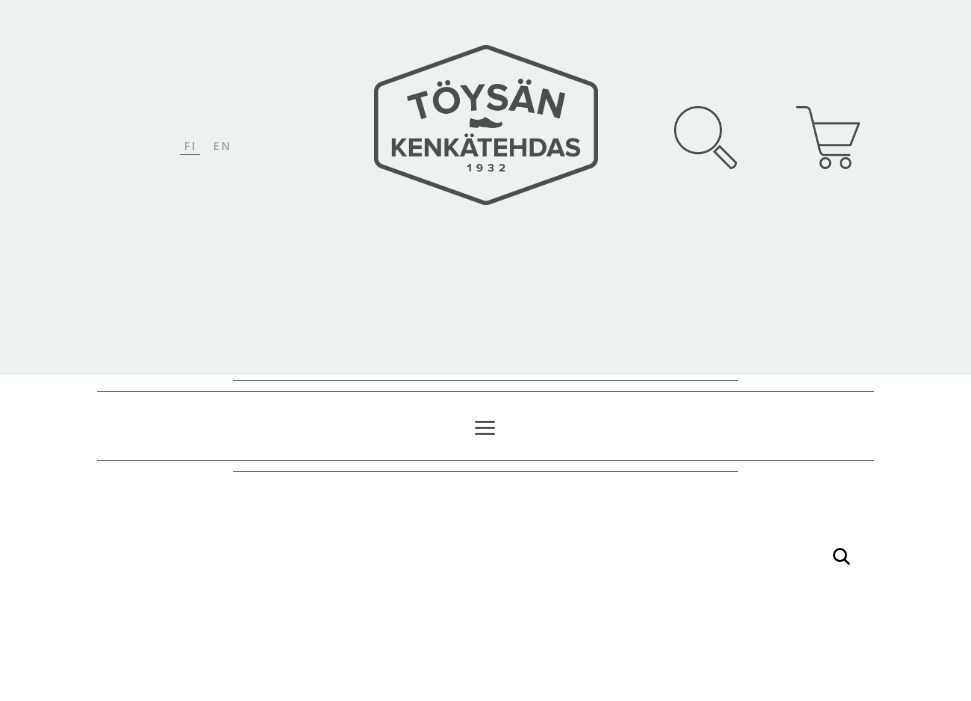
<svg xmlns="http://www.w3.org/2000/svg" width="971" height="701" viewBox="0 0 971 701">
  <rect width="100%" height="100%" fill="#ffffff"/>
  <rect x="0" y="0" width="971" height="375" fill="#eff0f0"/>
  <rect x="180" y="154" width="20" height="1" fill="#707070"/>
  <text x="184" y="150" font-family="Open Sans" font-size="11" font-weight="600" letter-spacing="2" fill="#9e9f9f">FI</text>
  <text x="213" y="150" font-family="Open Sans" font-size="11" font-weight="600" letter-spacing="2" fill="#9e9f9f">EN</text>
  <image x="674" y="106" width="63" height="63" href="img1.png"/>
  <image x="796" y="106" width="64" height="63" href="img2.png"/>
  <image x="374" y="45" width="224" height="160" href="img3.png"/>
  <rect x="233" y="380" width="505" height="1" fill="#707070"/>
  <rect x="97" y="391" width="777" height="1" fill="#707070"/>
  <rect x="97" y="460" width="777" height="1" fill="#707070"/>
  <image x="475" y="420" width="20" height="15" href="img4.png"/>
  <rect x="233" y="471" width="505" height="1" fill="#707070"/>
  <circle cx="840" cy="555" r="6" fill="none" stroke="#000000" stroke-width="2"/>
  <path d="M844 559C845.5 558 847 560.5 847.5 561C848 561.5 851 563.5 849.5 564.5C848.5 566 847 563 846 562.5C845.5 562 843 560 844 559Z" fill="#000000"/>
</svg>
